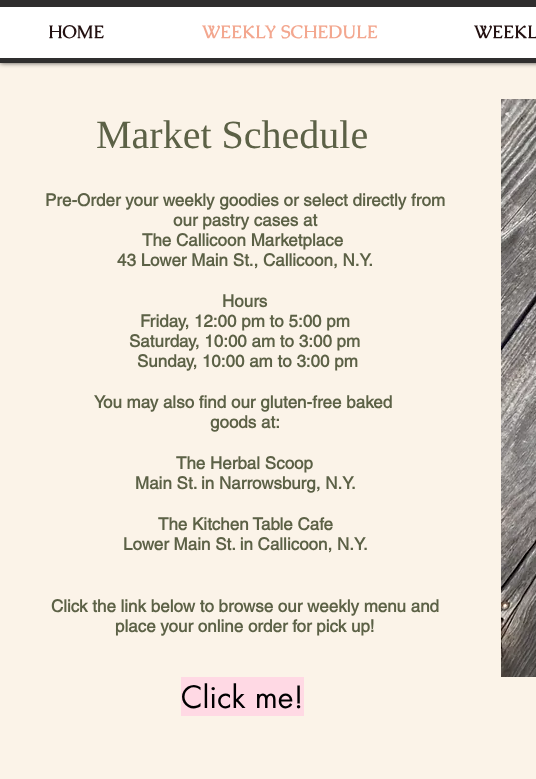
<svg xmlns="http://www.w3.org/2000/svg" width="536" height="779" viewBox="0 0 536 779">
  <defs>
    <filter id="blur1" x="-50%" y="-200%" width="200%" height="500%"><feGaussianBlur stdDeviation="2.5"/></filter>
  </defs>
  <rect width="100%" height="100%" fill="#fbf3e8"/>
  <rect x="0" y="0" width="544" height="63" fill="#000000" fill-opacity="0.7" filter="url(#blur1)"/>
  <rect x="0" y="0" width="536" height="7" fill="#2f2e2e"/>
  <rect x="0" y="58" width="536" height="5" fill="#2f2e2e"/>
  <rect x="0" y="7" width="536" height="51" fill="#ffffff"/>
  <text x="48" y="38" font-family="Caudex" font-size="18" font-weight="bold" fill="#231111">HOME</text>
  <text x="202" y="38" font-family="Caudex" font-size="18" font-weight="bold" fill="#f3a78f">WEEKLY SCHEDULE</text>
  <text x="474" y="38" font-family="Caudex" font-size="18" font-weight="bold" fill="#231111">WEEKL</text>
  <text x="96" y="148" font-family="Liberation Serif" font-size="40" fill="#5c6146">Market Schedule</text>
  <image x="501" y="99" width="35" height="578" href="img1.png"/>
  <text x="45" y="206" font-family="helvetica" font-size="17" font-weight="bold" fill="#5c6146">Pre-Order your weekly goodies or select directly from</text>
  <text x="173" y="226" font-family="helvetica" font-size="17" font-weight="bold" fill="#5c6146">our pastry cases at</text>
  <text x="142" y="246" font-family="helvetica" font-size="17" font-weight="bold" fill="#5c6146">The Callicoon Marketplace</text>
  <text x="117" y="266" font-family="helvetica" font-size="17" font-weight="bold" fill="#5c6146">43 Lower Main St., Callicoon, N.Y.</text>
  <text x="222" y="307" font-family="helvetica" font-size="17" font-weight="bold" fill="#5c6146">Hours</text>
  <text x="140" y="327" font-family="helvetica" font-size="17" font-weight="bold" fill="#5c6146">Friday, 12:00 pm to 5:00 pm</text>
  <text x="129" y="347" font-family="helvetica" font-size="17" font-weight="bold" fill="#5c6146">Saturday, 10:00 am to 3:00 pm</text>
  <text x="137" y="367" font-family="helvetica" font-size="17" font-weight="bold" fill="#5c6146">Sunday, 10:00 am to 3:00 pm</text>
  <text x="94" y="408" font-family="helvetica" font-size="17" font-weight="bold" fill="#5c6146">You may also find our gluten-free baked</text>
  <text x="210" y="428" font-family="helvetica" font-size="17" font-weight="bold" fill="#5c6146">goods at:</text>
  <text x="176" y="469" font-family="helvetica" font-size="17" font-weight="bold" fill="#5c6146">The Herbal Scoop</text>
  <text x="135" y="489" font-family="helvetica" font-size="17" font-weight="bold" fill="#5c6146">Main St. in Narrowsburg, N.Y.</text>
  <text x="158" y="530" font-family="helvetica" font-size="17" font-weight="bold" fill="#5c6146">The Kitchen Table Cafe</text>
  <text x="123" y="550" font-family="helvetica" font-size="17" font-weight="bold" fill="#5c6146">Lower Main St. in Callicoon, N.Y.</text>
  <text x="51" y="612" font-family="helvetica" font-size="17" font-weight="bold" fill="#5c6146">Click the link below to browse our weekly menu and</text>
  <text x="115" y="632" font-family="helvetica" font-size="17" font-weight="bold" fill="#5c6146">place your online order for pick up!</text>
  <rect x="181" y="677" width="123" height="39" fill="#ffd9e4"/>
  <text x="181" y="708" font-family="futura" font-size="30" fill="#000000">Click me!</text>
</svg>
